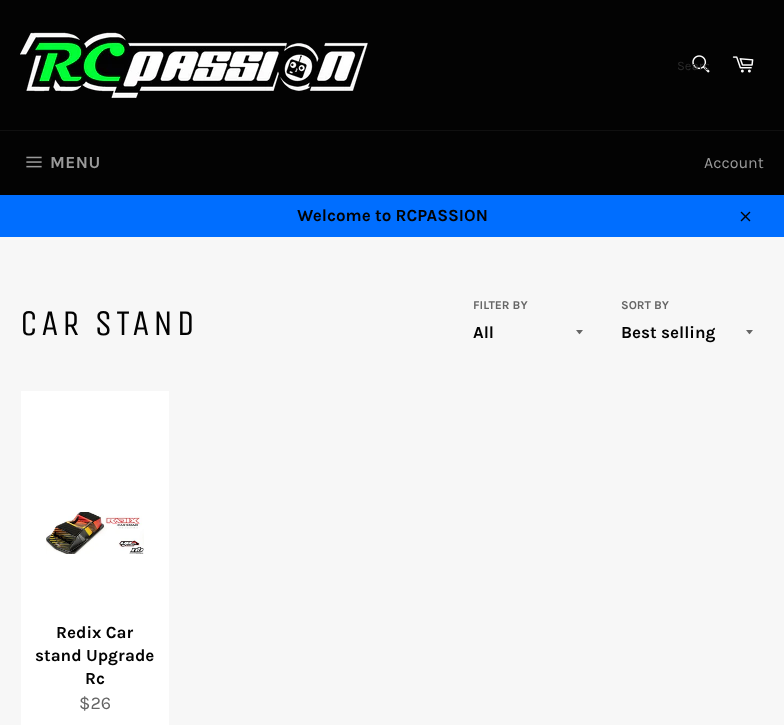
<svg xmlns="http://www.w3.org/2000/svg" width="784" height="725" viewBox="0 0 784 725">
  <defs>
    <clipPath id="clip1"><rect x="677" y="58" width="32" height="15"/></clipPath>
  </defs>
  <rect width="100%" height="100%" fill="#f7f7f7"/>
  <rect x="0" y="0" width="784" height="130" fill="#030303"/>
  <image x="20" y="32" width="348" height="66" href="img1.png"/>
  <image x="692" y="55" width="18" height="18" href="img2.png"/>
  <g clip-path="url(#clip1)">
    <text x="677" y="70" font-family="Karla" font-size="13" fill="#2b2b2b">Searc</text>
  </g>
  <image x="732" y="56" width="22" height="17" href="img3.png"/>
  <rect x="0" y="131" width="784" height="64" fill="#030303"/>
  <rect x="0" y="130" width="784" height="1" fill="#101010"/>
  <image x="26" y="156" width="16" height="12" href="img4.png"/>
  <text x="50" y="168" font-family="Karla" font-size="17" font-weight="bold" letter-spacing="0.5" fill="#9a9a9a">MENU</text>
  <text x="704" y="168" font-family="Karla" font-size="16" fill="#9a9a9a">Account</text>
  <rect x="0" y="195" width="784" height="42" fill="#006eff"/>
  <text x="297" y="221" font-family="Karla" font-size="17" font-weight="bold" fill="#020202">Welcome to RCPASSION</text>
  <image x="740" y="211" width="11" height="11" href="img5.png"/>
  <text x="20" y="335" font-family="Unica One" font-size="36" letter-spacing="3.5" fill="#020202">CAR STAND</text>
  <text x="473" y="309" font-family="Karla" font-size="12" font-weight="bold" fill="#666666">FILTER BY</text>
  <path d="M576 330C580.5 335.5 578.5 335.5 583 330Z" fill="#666666"/>
  <text x="473" y="338" font-family="Karla" font-size="17" font-weight="bold" fill="#020202">All</text>
  <text x="621" y="309" font-family="Karla" font-size="12" font-weight="bold" fill="#666666">SORT BY</text>
  <path d="M746 330C750.5 335.5 748.5 335.5 753 330Z" fill="#666666"/>
  <text x="621" y="338" font-family="Karla" font-size="17" font-weight="bold" fill="#020202">Best selling</text>
  <rect x="21" y="391" width="148" height="334" fill="#ffffff"/>
  <image x="46" y="512" width="98" height="42" href="img6.png"/>
  <text x="56" y="638" font-family="Karla" font-size="17" font-weight="bold" fill="#020202">Redix Car</text>
  <text x="35" y="661" font-family="Karla" font-size="17" font-weight="bold" fill="#020202">stand Upgrade</text>
  <text x="85" y="684" font-family="Karla" font-size="17" font-weight="bold" fill="#020202">Rc</text>
  <text x="79" y="709" font-family="Karla" font-size="18" fill="#666666">$26</text>
</svg>
